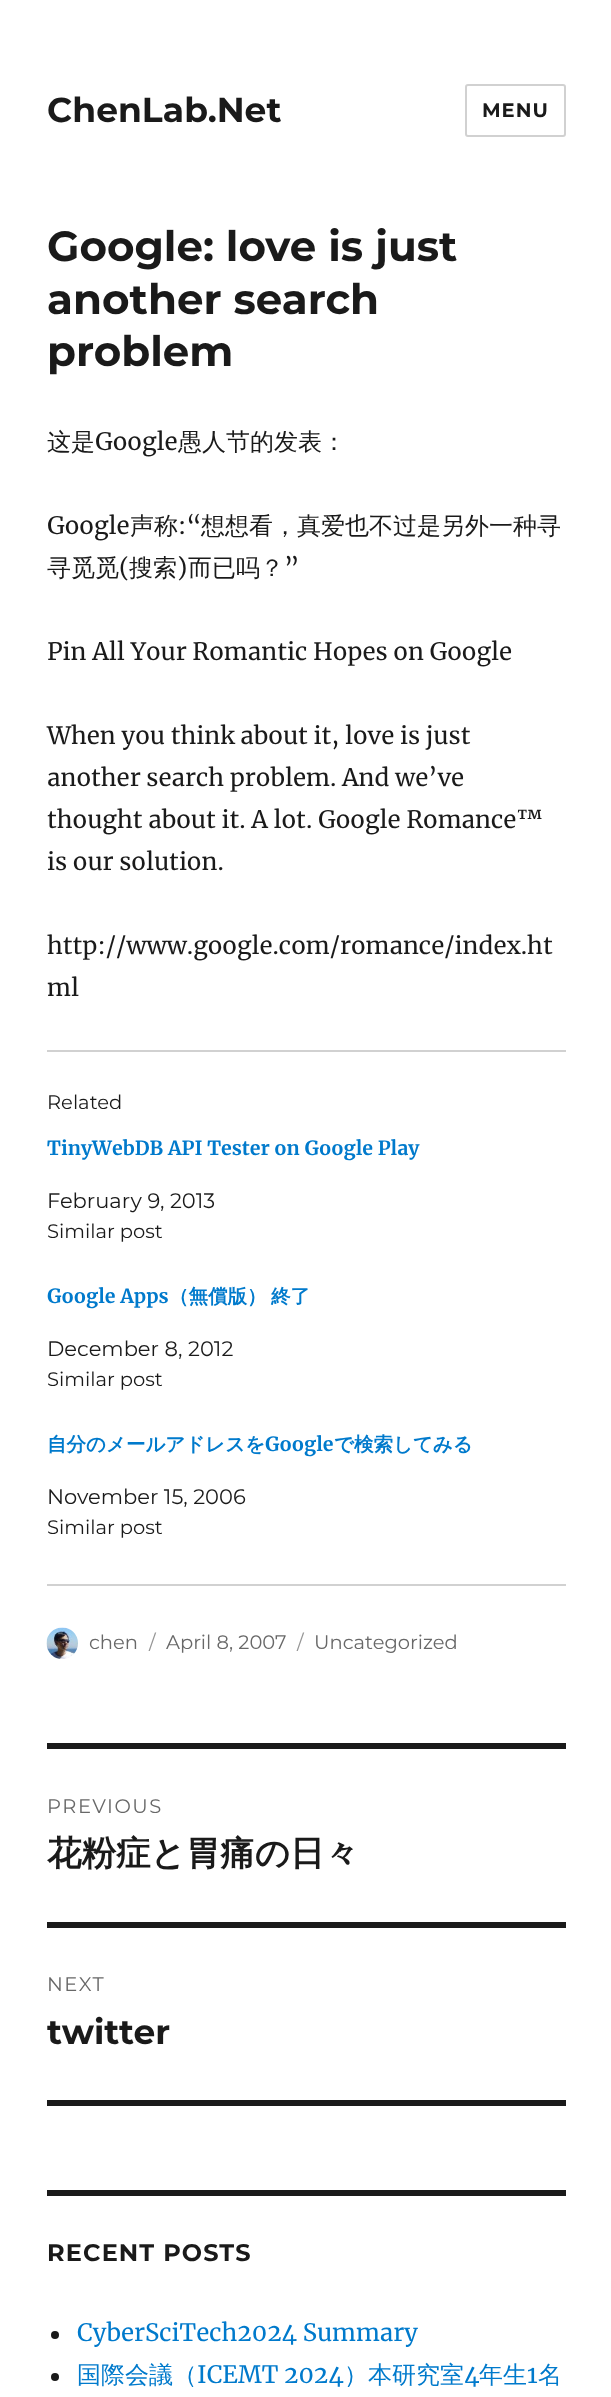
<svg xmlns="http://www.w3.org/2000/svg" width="611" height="2397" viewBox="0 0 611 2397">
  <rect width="100%" height="100%" fill="#ffffff"/>
  <text x="47" y="122" font-family="Montserrat" font-size="34.5" font-weight="100" fill="#1a1a1a">ChenLab.Net</text>
  <rect x="466" y="85" width="99" height="51" rx="2" fill="none" stroke="#d1d1d1" stroke-width="2"/>
  <text x="482" y="117" font-family="Montserrat" font-size="19.5" font-weight="100" letter-spacing="1" fill="#1a1a1a">MENU</text>
  <text x="47" y="261" font-family="Montserrat" font-size="42" font-weight="100" fill="#1a1a1a">Google: love is just</text>
  <text x="47" y="314" font-family="Montserrat" font-size="42" font-weight="100" fill="#1a1a1a">another search</text>
  <text x="47" y="366" font-family="Montserrat" font-size="42" font-weight="100" fill="#1a1a1a">problem</text>
  <text x="47" y="450" font-family="WenQuanYi Zen Hei" font-size="24" font-weight="500" fill="#1a1a1a">这是</text>
  <text x="95" y="450" font-family="Merriweather" font-size="24" fill="#1a1a1a">Google</text>
  <text x="178" y="450" font-family="WenQuanYi Zen Hei" font-size="24" font-weight="500" fill="#1a1a1a">愚人节的发表：</text>
  <text x="47" y="534" font-family="Merriweather" font-size="24" fill="#1a1a1a">Google</text>
  <text x="130" y="534" font-family="WenQuanYi Zen Hei" font-size="24" font-weight="500" fill="#1a1a1a">声称</text>
  <text x="178" y="534" font-family="Merriweather" font-size="24" fill="#1a1a1a">:“</text>
  <text x="201" y="534" font-family="WenQuanYi Zen Hei" font-size="24" font-weight="500" fill="#1a1a1a">想想看，真爱也不过是另外一种寻</text>
  <text x="47" y="576" font-family="WenQuanYi Zen Hei" font-size="24" font-weight="500" fill="#1a1a1a">寻觅觅</text>
  <text x="119" y="576" font-family="Merriweather" font-size="24" fill="#1a1a1a">(</text>
  <text x="129" y="576" font-family="WenQuanYi Zen Hei" font-size="24" font-weight="500" fill="#1a1a1a">搜索</text>
  <text x="177" y="576" font-family="Merriweather" font-size="24" fill="#1a1a1a">)</text>
  <text x="188" y="576" font-family="WenQuanYi Zen Hei" font-size="24" font-weight="500" fill="#1a1a1a">而已吗？</text>
  <text x="284" y="576" font-family="Merriweather" font-size="24" fill="#1a1a1a">”</text>
  <text x="47" y="660" font-family="Merriweather" font-size="24" fill="#1a1a1a">Pin All Your Romantic Hopes on Google</text>
  <text x="47" y="744" font-family="Merriweather" font-size="24" fill="#1a1a1a">When you think about it, love is just</text>
  <text x="47" y="786" font-family="Merriweather" font-size="24" fill="#1a1a1a">another search problem. And we’ve</text>
  <text x="47" y="828" font-family="Merriweather" font-size="24" fill="#1a1a1a">thought about it. A lot. Google Romance™</text>
  <text x="47" y="870" font-family="Merriweather" font-size="24" fill="#1a1a1a">is our solution.</text>
  <text x="47" y="954" font-family="Merriweather" font-size="24" fill="#1a1a1a">http://www.google.com/romance/index.ht</text>
  <text x="47" y="996" font-family="Merriweather" font-size="24" fill="#1a1a1a">ml</text>
  <rect x="47" y="1050" width="519" height="2" fill="#d1d1d1"/>
  <text x="47" y="1109" font-family="'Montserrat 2'" font-size="19.5" font-weight="100" fill="#1a1a1a">Related</text>
  <text x="47" y="1155" font-family="Merriweather" font-size="19.5" font-weight="bold" fill="#007acc">TinyWebDB API Tester on Google Play</text>
  <text x="47" y="1208" font-family="'Montserrat 2'" font-size="21" font-weight="100" fill="#1a1a1a">February 9, 2013</text>
  <text x="47" y="1238" font-family="'Montserrat 2'" font-size="19.5" font-weight="100" fill="#1a1a1a">Similar post</text>
  <text x="47" y="1303" font-family="Merriweather" font-size="19.5" font-weight="bold" fill="#007acc">Google Apps</text>
  <text x="169" y="1303" font-family="WenQuanYi Zen Hei" font-size="19.5" font-weight="bold" fill="#007acc">（無償版）</text>
  <text x="271" y="1303" font-family="WenQuanYi Zen Hei" font-size="19.5" font-weight="bold" fill="#007acc">終了</text>
  <text x="47" y="1356" font-family="'Montserrat 2'" font-size="21" font-weight="100" fill="#1a1a1a">December 8, 2012</text>
  <text x="47" y="1386" font-family="'Montserrat 2'" font-size="19.5" font-weight="100" fill="#1a1a1a">Similar post</text>
  <text x="47" y="1451" font-family="WenQuanYi Zen Hei" font-size="19.5" font-weight="bold" fill="#007acc">自分のメールアドレスを</text>
  <text x="265" y="1451" font-family="Merriweather" font-size="19.5" font-weight="bold" fill="#007acc">Google</text>
  <text x="334" y="1451" font-family="WenQuanYi Zen Hei" font-size="19.5" font-weight="bold" fill="#007acc">で検索してみる</text>
  <text x="47" y="1504" font-family="'Montserrat 2'" font-size="21" font-weight="100" fill="#1a1a1a">November 15, 2006</text>
  <text x="47" y="1534" font-family="'Montserrat 2'" font-size="19.5" font-weight="100" fill="#1a1a1a">Similar post</text>
  <rect x="47" y="1584" width="519" height="2" fill="#d1d1d1"/>
  <image x="46" y="1627" width="32" height="32" href="img1.png"/>
  <text x="89" y="1649" font-family="'Montserrat 2'" font-size="19.5" font-weight="100" fill="#686868">chen</text>
  <text x="149" y="1649" font-family="'Montserrat 2'" font-size="19.5" font-weight="100" fill="#959595">/</text>
  <text x="166" y="1649" font-family="'Montserrat 2'" font-size="19.5" font-weight="100" fill="#686868">April 8, 2007</text>
  <text x="297" y="1649" font-family="'Montserrat 2'" font-size="19.5" font-weight="100" fill="#959595">/</text>
  <text x="314" y="1649" font-family="'Montserrat 2'" font-size="19.5" font-weight="100" fill="#686868">Uncategorized</text>
  <rect x="47" y="1743" width="519" height="6" fill="#1a1a1a"/>
  <rect x="47" y="2100" width="519" height="6" fill="#1a1a1a"/>
  <text x="47" y="1813" font-family="'Montserrat 2'" font-size="19.5" font-weight="100" letter-spacing="1.5" fill="#686868">PREVIOUS</text>
  <text x="47" y="1865" font-family="WenQuanYi Zen Hei" font-size="34.5" font-weight="bold" fill="#1a1a1a">花粉症と胃痛の日々</text>
  <rect x="47" y="1922" width="519" height="6" fill="#1a1a1a"/>
  <text x="47" y="1991" font-family="'Montserrat 2'" font-size="19.5" font-weight="100" letter-spacing="1.5" fill="#686868">NEXT</text>
  <text x="47" y="2044" font-family="Montserrat" font-size="34.5" font-weight="100" fill="#1a1a1a">twitter</text>
  <rect x="47" y="2190" width="519" height="6" fill="#1a1a1a"/>
  <text x="47" y="2261" font-family="Montserrat" font-size="24" font-weight="100" letter-spacing="1.1" fill="#1a1a1a">RECENT POSTS</text>
  <circle cx="55" cy="2335" r="4" fill="#1a1a1a"/>
  <text x="77" y="2341" font-family="Merriweather" font-size="24" fill="#007acc">CyberSciTech2024 Summary</text>
  <circle cx="55" cy="2377" r="4" fill="#1a1a1a"/>
  <text x="77" y="2383" font-family="WenQuanYi Zen Hei" font-size="24" font-weight="500" fill="#007acc">国際会議（</text>
  <text x="197" y="2383" font-family="Merriweather" font-size="24" fill="#007acc">ICEMT 2024</text>
  <text x="344" y="2383" font-family="WenQuanYi Zen Hei" font-size="24" font-weight="500" fill="#007acc">）本研究室</text>
  <text x="464" y="2383" font-family="Merriweather" font-size="24" fill="#007acc">4</text>
  <text x="479" y="2383" font-family="WenQuanYi Zen Hei" font-size="24" font-weight="500" fill="#007acc">年生</text>
  <text x="527" y="2383" font-family="Merriweather" font-size="24" fill="#007acc">1</text>
  <text x="538" y="2383" font-family="WenQuanYi Zen Hei" font-size="24" font-weight="500" fill="#007acc">名</text>
</svg>
